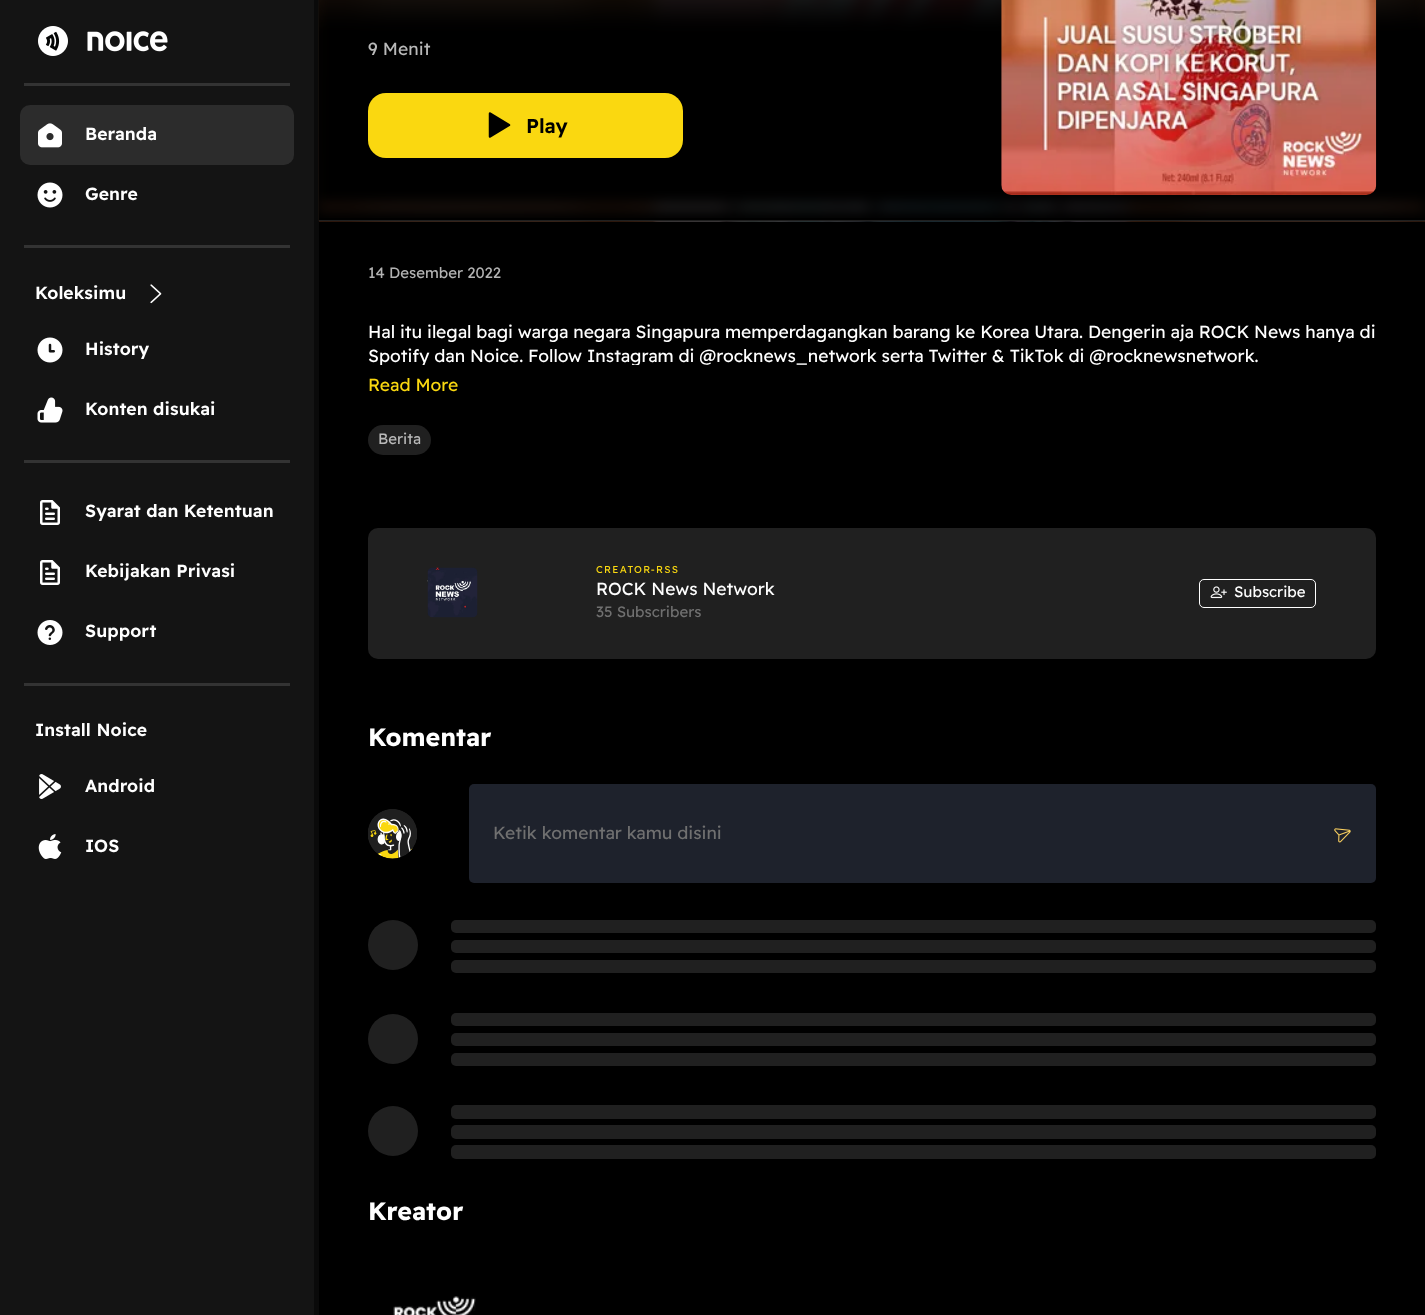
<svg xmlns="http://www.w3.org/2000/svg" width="1425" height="1315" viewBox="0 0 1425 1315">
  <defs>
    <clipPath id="clip1"><rect x="368" y="320" width="1008" height="45"/></clipPath>
  </defs>
  <rect width="100%" height="100%" fill="#141414"/>
  <rect x="314" y="0" width="5" height="1315" fill="#0a0a0a"/>
  <image x="38" y="26" width="130" height="30" href="img1.png"/>
  <rect x="24" y="83" width="266" height="3" fill="#333333"/>
  <rect x="20" y="105" width="274" height="60" rx="10" fill="#2c2c2c"/>
  <image x="38" y="123" width="24" height="25" href="img2.png"/>
  <text x="85" y="140" font-family="Readex Pro" font-size="17.5" font-weight="600" letter-spacing="0.1" fill="#ffffff">Beranda</text>
  <image x="37" y="182" width="26" height="26" href="img3.png"/>
  <text x="85" y="200" font-family="Readex Pro" font-size="17.5" font-weight="600" letter-spacing="0.1" fill="#ffffff">Genre</text>
  <rect x="24" y="245" width="266" height="3" fill="#333333"/>
  <text x="35" y="299" font-family="Readex Pro" font-size="17.5" font-weight="600" letter-spacing="0.1" fill="#ffffff">Koleksimu</text>
  <image x="150" y="284" width="12" height="20" href="img4.png"/>
  <image x="37" y="337" width="26" height="26" href="img5.png"/>
  <text x="85" y="355" font-family="Readex Pro" font-size="17.5" font-weight="600" letter-spacing="0.1" fill="#ffffff">History</text>
  <image x="37" y="397" width="26" height="26" href="img6.png"/>
  <text x="85" y="415" font-family="Readex Pro" font-size="17.5" font-weight="600" letter-spacing="0.1" fill="#ffffff">Konten disukai</text>
  <rect x="24" y="460" width="266" height="3" fill="#333333"/>
  <image x="40" y="500" width="20" height="25" href="img7.png"/>
  <text x="85" y="517" font-family="Readex Pro" font-size="17.5" font-weight="600" letter-spacing="0.1" fill="#ffffff">Syarat dan Ketentuan</text>
  <image x="40" y="560" width="20" height="25" href="img7.png"/>
  <text x="85" y="577" font-family="Readex Pro" font-size="17.5" font-weight="600" letter-spacing="0.1" fill="#ffffff">Kebijakan Privasi</text>
  <image x="37" y="620" width="26" height="25" href="img8.png"/>
  <text x="85" y="637" font-family="Readex Pro" font-size="17.5" font-weight="600" letter-spacing="0.1" fill="#ffffff">Support</text>
  <rect x="24" y="683" width="266" height="3" fill="#333333"/>
  <text x="35" y="736" font-family="Readex Pro" font-size="17.5" font-weight="600" letter-spacing="0.1" fill="#ffffff">Install Noice</text>
  <image x="39" y="774" width="22" height="25" href="img9.png"/>
  <text x="85" y="792" font-family="Readex Pro" font-size="17.5" font-weight="600" letter-spacing="0.1" fill="#ffffff">Android</text>
  <image x="38" y="834" width="24" height="25" href="img10.png"/>
  <text x="85" y="852" font-family="Readex Pro" font-size="17.5" font-weight="600" letter-spacing="0.1" fill="#ffffff">IOS</text>
  <rect x="319" y="221" width="1106" height="1094" fill="#000000"/>
  <image x="318" y="0" width="1107" height="222" href="img11.png"/>
  <rect x="319" y="220" width="1106" height="1" fill="#202020"/>
  <image x="319" y="0" width="1106" height="218" href="img12.png"/>
  <text x="368" y="55" font-family="Readex Pro" font-size="17.5" letter-spacing="0.1" fill="#b9b9b9">9 Menit</text>
  <rect x="368" y="93" width="315" height="65" rx="18" fill="#fad810"/>
  <path d="M490 136.5V113.5L509 125Z" fill="#000000" stroke="#000000" stroke-width="2.5" stroke-linejoin="round"/>
  <text x="526" y="133" font-family="Readex Pro" font-size="20" font-weight="600" fill="#000000">Play</text>
  <image x="1001" y="0" width="376" height="195" href="img13.png"/>
  <text x="368" y="278" font-family="Readex Pro" font-size="15" fill="#b3b3b3">14 Desember 2022</text>
  <text x="368" y="338" font-family="Readex Pro" font-size="17.5" fill="#ffffff">Hal itu ilegal bagi warga negara Singapura memperdagangkan barang ke Korea Utara. Dengerin aja ROCK News hanya di</text>
  <g clip-path="url(#clip1)">
    <text x="368" y="362" font-family="Readex Pro" font-size="17.5" fill="#ffffff">Spotify dan Noice. Follow Instagram di @rocknews_network serta Twitter &amp; TikTok di @rocknewsnetwork.</text>
  </g>
  <text x="368" y="391" font-family="Readex Pro" font-size="17.5" fill="#fad810">Read More</text>
  <rect x="368" y="425" width="63" height="30" rx="15" fill="#202020"/>
  <text x="378" y="444" font-family="Readex Pro" font-size="15" fill="#b9b9b9">Berita</text>
  <rect x="368" y="528" width="1008" height="131" rx="10" fill="#202020"/>
  <image x="427" y="567" width="51" height="51" href="img14.png"/>
  <text x="596" y="573" font-family="Readex Pro" font-size="10" letter-spacing="1.25" fill="#fad810">CREATOR-RSS</text>
  <text x="596" y="595" font-family="Readex Pro" font-size="17.5" fill="#ffffff">ROCK News Network</text>
  <text x="596" y="617" font-family="Readex Pro" font-size="15" fill="#707070">35 Subscribers</text>
  <rect x="1199.5" y="579.5" width="116" height="28" rx="4.5" fill="none" stroke="#ffffff"/>
  <image x="1210" y="586" width="17" height="13" href="img15.png"/>
  <text x="1234" y="597" font-family="Readex Pro" font-size="15" fill="#ffffff">Subscribe</text>
  <text x="368" y="746" font-family="Readex Pro" font-size="25" font-weight="bold" fill="#ffffff">Komentar</text>
  <image x="368" y="809" width="49" height="50" href="img16.png"/>
  <rect x="469" y="784" width="907" height="99" rx="5" fill="#1e222c"/>
  <text x="493" y="839" font-family="Readex Pro" font-size="17.5" fill="#707070">Ketik komentar kamu disini</text>
  <image x="1334" y="828" width="17" height="15" href="img17.png"/>
  <circle cx="393" cy="945" r="25" fill="#202020"/>
  <rect x="451" y="920" width="925" height="13" rx="5" fill="#202020"/>
  <rect x="451" y="940" width="925" height="13" rx="5" fill="#202020"/>
  <rect x="451" y="960" width="925" height="13" rx="5" fill="#202020"/>
  <circle cx="393" cy="1039" r="25" fill="#202020"/>
  <rect x="451" y="1013" width="925" height="13" rx="5" fill="#202020"/>
  <rect x="451" y="1033" width="925" height="13" rx="5" fill="#202020"/>
  <rect x="451" y="1053" width="925" height="13" rx="5" fill="#202020"/>
  <circle cx="393" cy="1131" r="25" fill="#202020"/>
  <rect x="451" y="1105" width="925" height="14" rx="5" fill="#202020"/>
  <rect x="451" y="1125" width="925" height="14" rx="5" fill="#202020"/>
  <rect x="451" y="1145" width="925" height="14" rx="5" fill="#202020"/>
  <text x="368" y="1220" font-family="Readex Pro" font-size="25" font-weight="bold" fill="#ffffff">Kreator</text>
  <image x="393" y="1296" width="83" height="19" href="img18.png"/>
</svg>
